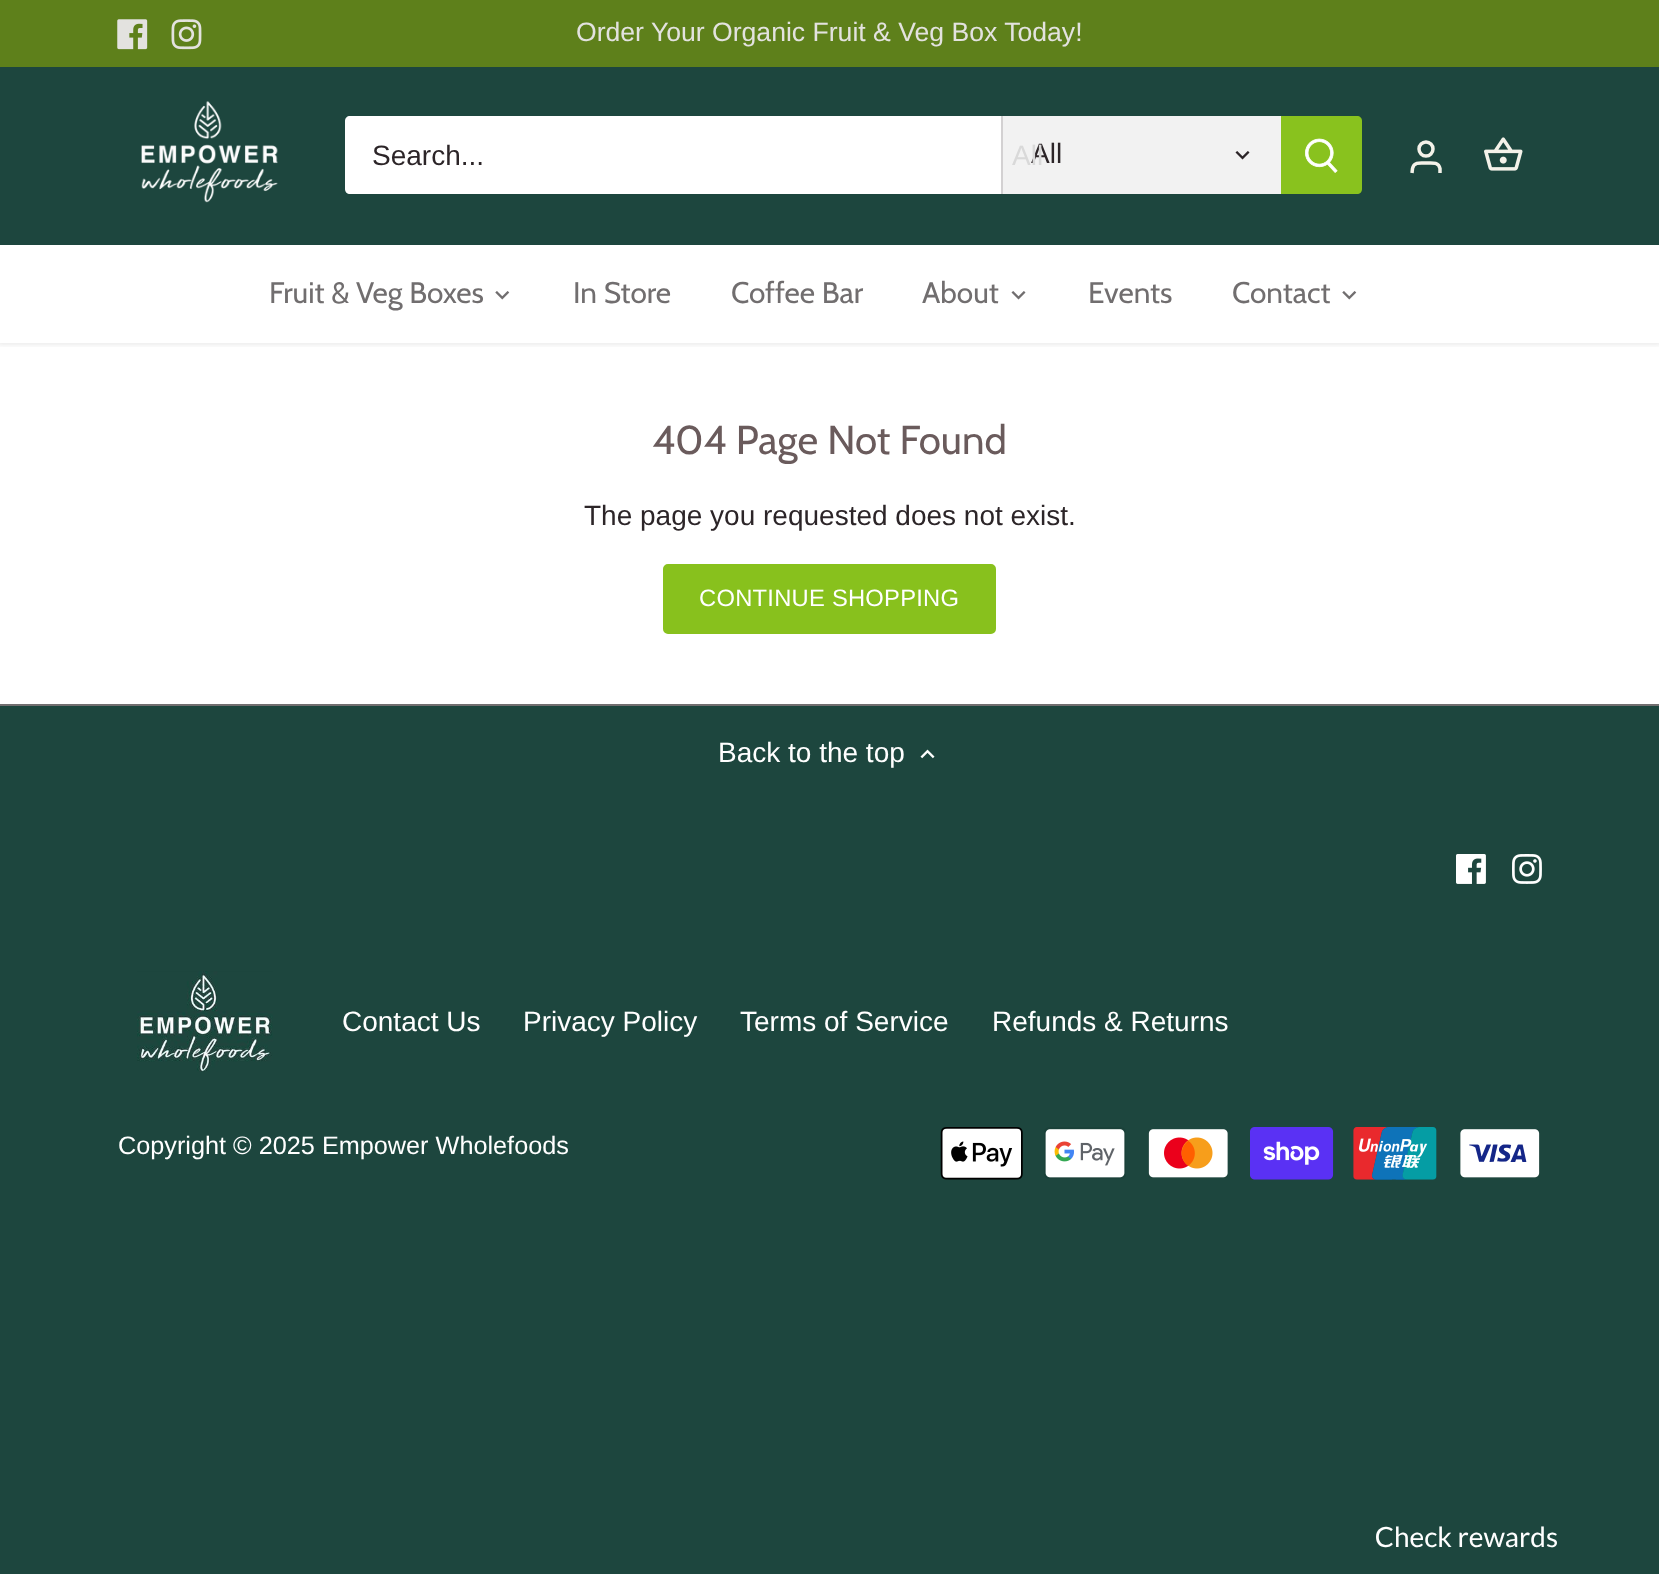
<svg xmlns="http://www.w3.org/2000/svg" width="1659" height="1574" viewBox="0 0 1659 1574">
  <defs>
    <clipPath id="clip1"><rect x="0" y="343" width="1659" height="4"/></clipPath>
    <filter id="blur1" x="-50%" y="-200%" width="200%" height="500%"><feGaussianBlur stdDeviation="2.5"/></filter>
  </defs>
  <rect width="100%" height="100%" fill="#1d463e"/>
  <rect x="0" y="245" width="1659" height="459" fill="#ffffff"/>
  <g clip-path="url(#clip1)">
    <rect x="-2" y="65" width="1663" height="280" fill="#000000" fill-opacity="0.08" filter="url(#blur1)"/>
  </g>
  <rect x="0" y="0" width="1659" height="67" fill="#5e801b"/>
  <image x="117" y="19" width="31" height="31" href="img1.png"/>
  <image x="171" y="19" width="31" height="31" href="img2.png"/>
  <text x="576" y="41" font-family="Liberation Sans" font-size="26.6" fill="#e3e2df">Order Your Organic Fruit &amp; Veg Box Today!</text>
  <image x="141" y="101" width="137" height="102" href="img3.png"/>
  <path d="M350 116H1001V194H350C347 194 345 192 345 189V121C345 118 347 116 350 116Z" fill="#ffffff"/>
  <text x="372" y="165" font-family="Liberation Sans" font-size="28" fill="#2c2528">Search...</text>
  <rect x="1003" y="116" width="278" height="78" fill="#f2f2f2"/>
  <rect x="1001" y="116" width="2" height="78" fill="#d3d1d2"/>
  <text x="1031" y="163" font-family="Liberation Sans" font-size="28" fill="#2c2528">All</text>
  <text x="1012" y="165" font-family="Liberation Sans" font-size="28" fill="#d9d9d9">All</text>
  <image x="1235" y="151" width="15" height="9" href="img4.png"/>
  <path d="M1281 116H1357C1360 116 1362 118 1362 121V189C1362 192 1360 194 1357 194H1281Z" fill="#89c21e"/>
  <image x="1305" y="138" width="33" height="35" href="img5.png"/>
  <circle cx="1426" cy="149" r="7" fill="none" stroke="#f4f2e9" stroke-width="3.5"/>
  <path d="M1440 173V168.5C1438.5 161.5 1431.5 163 1426 163C1421 163 1414 161.5 1412.5 168.5L1412 173" fill="none" stroke="#f4f2e9" stroke-width="3.5"/>
  <image x="1484" y="137" width="39" height="34" href="img6.png"/>
  <text x="269" y="303" font-family="Cabin" font-size="29.75" fill="#716e6f">Fruit &amp; Veg Boxes</text>
  <image x="495" y="291" width="15" height="9" href="img7.png"/>
  <text x="573" y="303" font-family="Cabin" font-size="29.75" fill="#716e6f">In Store</text>
  <text x="731" y="303" font-family="Cabin" font-size="29.75" fill="#716e6f">Coffee Bar</text>
  <text x="922" y="303" font-family="Cabin" font-size="29.75" fill="#716e6f">About</text>
  <image x="1011" y="291" width="15" height="9" href="img8.png"/>
  <text x="1088" y="303" font-family="Cabin" font-size="29.75" fill="#716e6f">Events</text>
  <text x="1232" y="303" font-family="Cabin" font-size="29.75" fill="#716e6f">Contact</text>
  <image x="1342" y="291" width="15" height="9" href="img7.png"/>
  <text x="652" y="454" font-family="Cabin" font-size="40.25" fill="#6a5b5c">404 Page Not Found</text>
  <text x="584" y="525" font-family="Liberation Sans" font-size="28" fill="#2c2528">The page you requested does not exist.</text>
  <rect x="665" y="566" width="329" height="66" rx="3" fill="#88c11d" stroke="#88c11d" stroke-width="4"/>
  <text x="699" y="606" font-family="Liberation Sans" font-size="23.75" letter-spacing="0.25" fill="#ffffff">CONTINUE SHOPPING</text>
  <rect x="0" y="704" width="1659" height="2" fill="#716e6f"/>
  <text x="718" y="762" font-family="Liberation Sans" font-size="28" fill="#ffffff">Back to the top</text>
  <image x="920" y="749" width="15" height="10" href="img9.png"/>
  <image x="1456" y="854" width="30" height="30" href="img10.png"/>
  <image x="1512" y="854" width="30" height="30" href="img11.png"/>
  <image x="137" y="971" width="136" height="101" href="img12.png"/>
  <text x="342" y="1031" font-family="Liberation Sans" font-size="28" fill="#ffffff">Contact Us</text>
  <text x="523" y="1031" font-family="Liberation Sans" font-size="28" fill="#ffffff">Privacy Policy</text>
  <text x="740" y="1031" font-family="Liberation Sans" font-size="28" fill="#ffffff">Terms of Service</text>
  <text x="992" y="1031" font-family="Liberation Sans" font-size="28" fill="#ffffff">Refunds &amp; Returns</text>
  <text x="118" y="1154" font-family="Liberation Sans" font-size="25.25" fill="#ffffff">Copyright © 2025 Empower Wholefoods</text>
  <image x="940" y="1127" width="83" height="53" href="img13.png"/>
  <image x="1044" y="1127" width="82" height="52" href="img14.png"/>
  <image x="1148" y="1129" width="80" height="49" href="img15.png"/>
  <image x="1250" y="1127" width="84" height="53" href="img16.png"/>
  <image x="1353" y="1127" width="84" height="53" href="img17.png"/>
  <image x="1460" y="1129" width="80" height="49" href="img18.png"/>
  <image x="1376" y="1526" width="181" height="22" href="img19.png"/>
</svg>
